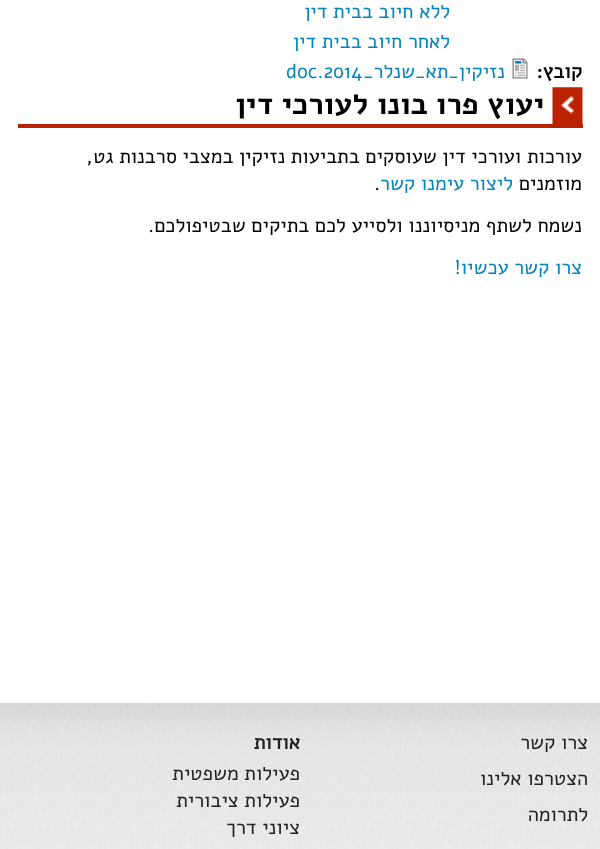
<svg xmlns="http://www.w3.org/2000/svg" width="600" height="849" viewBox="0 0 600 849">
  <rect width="100%" height="100%" fill="#ffffff"/>
  <text x="450" y="18" font-family="Alef" font-size="20" direction="rtl" fill="#0385bc">ללא חיוב בבית דין</text>
  <text x="450" y="48" font-family="Alef" font-size="20" direction="rtl" fill="#0385bc">לאחר חיוב בבית דין</text>
  <text x="582" y="78" font-family="Alef" font-size="20" font-weight="bold" direction="rtl" fill="#000000">קובץ:</text>
  <image x="512" y="58" width="16" height="21" href="img1.png"/>
  <text x="505" y="78" font-family="Alef" font-size="20" direction="rtl" fill="#0385bc">נזיקין_תא_שנלר_</text>
  <text x="286" y="78" font-family="Alef" font-size="20" fill="#0385bc">doc.2014</text>
  <image x="552" y="87" width="31" height="37" href="img2.png"/>
  <rect x="18" y="124" width="565" height="4" fill="#bb2202"/>
  <text x="544" y="114" font-family="'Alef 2'" font-size="30" font-weight="bold" direction="rtl" fill="#000000">יעוץ פרו בונו לעורכי דין</text>
  <text x="582" y="163" font-family="Alef" font-size="20" direction="rtl" fill="#000000">עורכות ועורכי דין שעוסקים בתביעות נזיקין במצבי סרבנות גט,</text>
  <text x="582" y="190" font-family="Alef" font-size="20" direction="rtl" fill="#000000">מוזמנים</text>
  <text x="513" y="190" font-family="Alef" font-size="20" direction="rtl" fill="#0385bc">ליצור עימנו קשר</text>
  <text x="374" y="190" font-family="Alef" font-size="20" fill="#000000">.</text>
  <text x="582" y="232" font-family="Alef" font-size="20" direction="rtl" fill="#000000">נשמח לשתף מניסיוננו ולסייע לכם בתיקים שבטיפולכם.</text>
  <text x="582" y="274" font-family="Alef" font-size="20" direction="rtl" fill="#0385bc">צרו קשר עכשיו!</text>
  <image x="0" y="703" width="600" height="146" href="img3.png"/>
  <text x="588" y="749" font-family="Alef" font-size="20" direction="rtl" fill="#222222">צרו קשר</text>
  <text x="588" y="785" font-family="Alef" font-size="20" direction="rtl" fill="#222222">הצטרפו אלינו</text>
  <text x="588" y="821" font-family="Alef" font-size="20" direction="rtl" fill="#222222">לתרומה</text>
  <text x="300" y="749" font-family="Alef" font-size="20" font-weight="bold" direction="rtl" fill="#222222">אודות</text>
  <text x="300" y="780" font-family="Alef" font-size="20" direction="rtl" fill="#222222">פעילות משפטית</text>
  <text x="300" y="807" font-family="Alef" font-size="20" direction="rtl" fill="#222222">פעילות ציבורית</text>
  <text x="300" y="834" font-family="Alef" font-size="20" direction="rtl" fill="#222222">ציוני דרך</text>
</svg>
